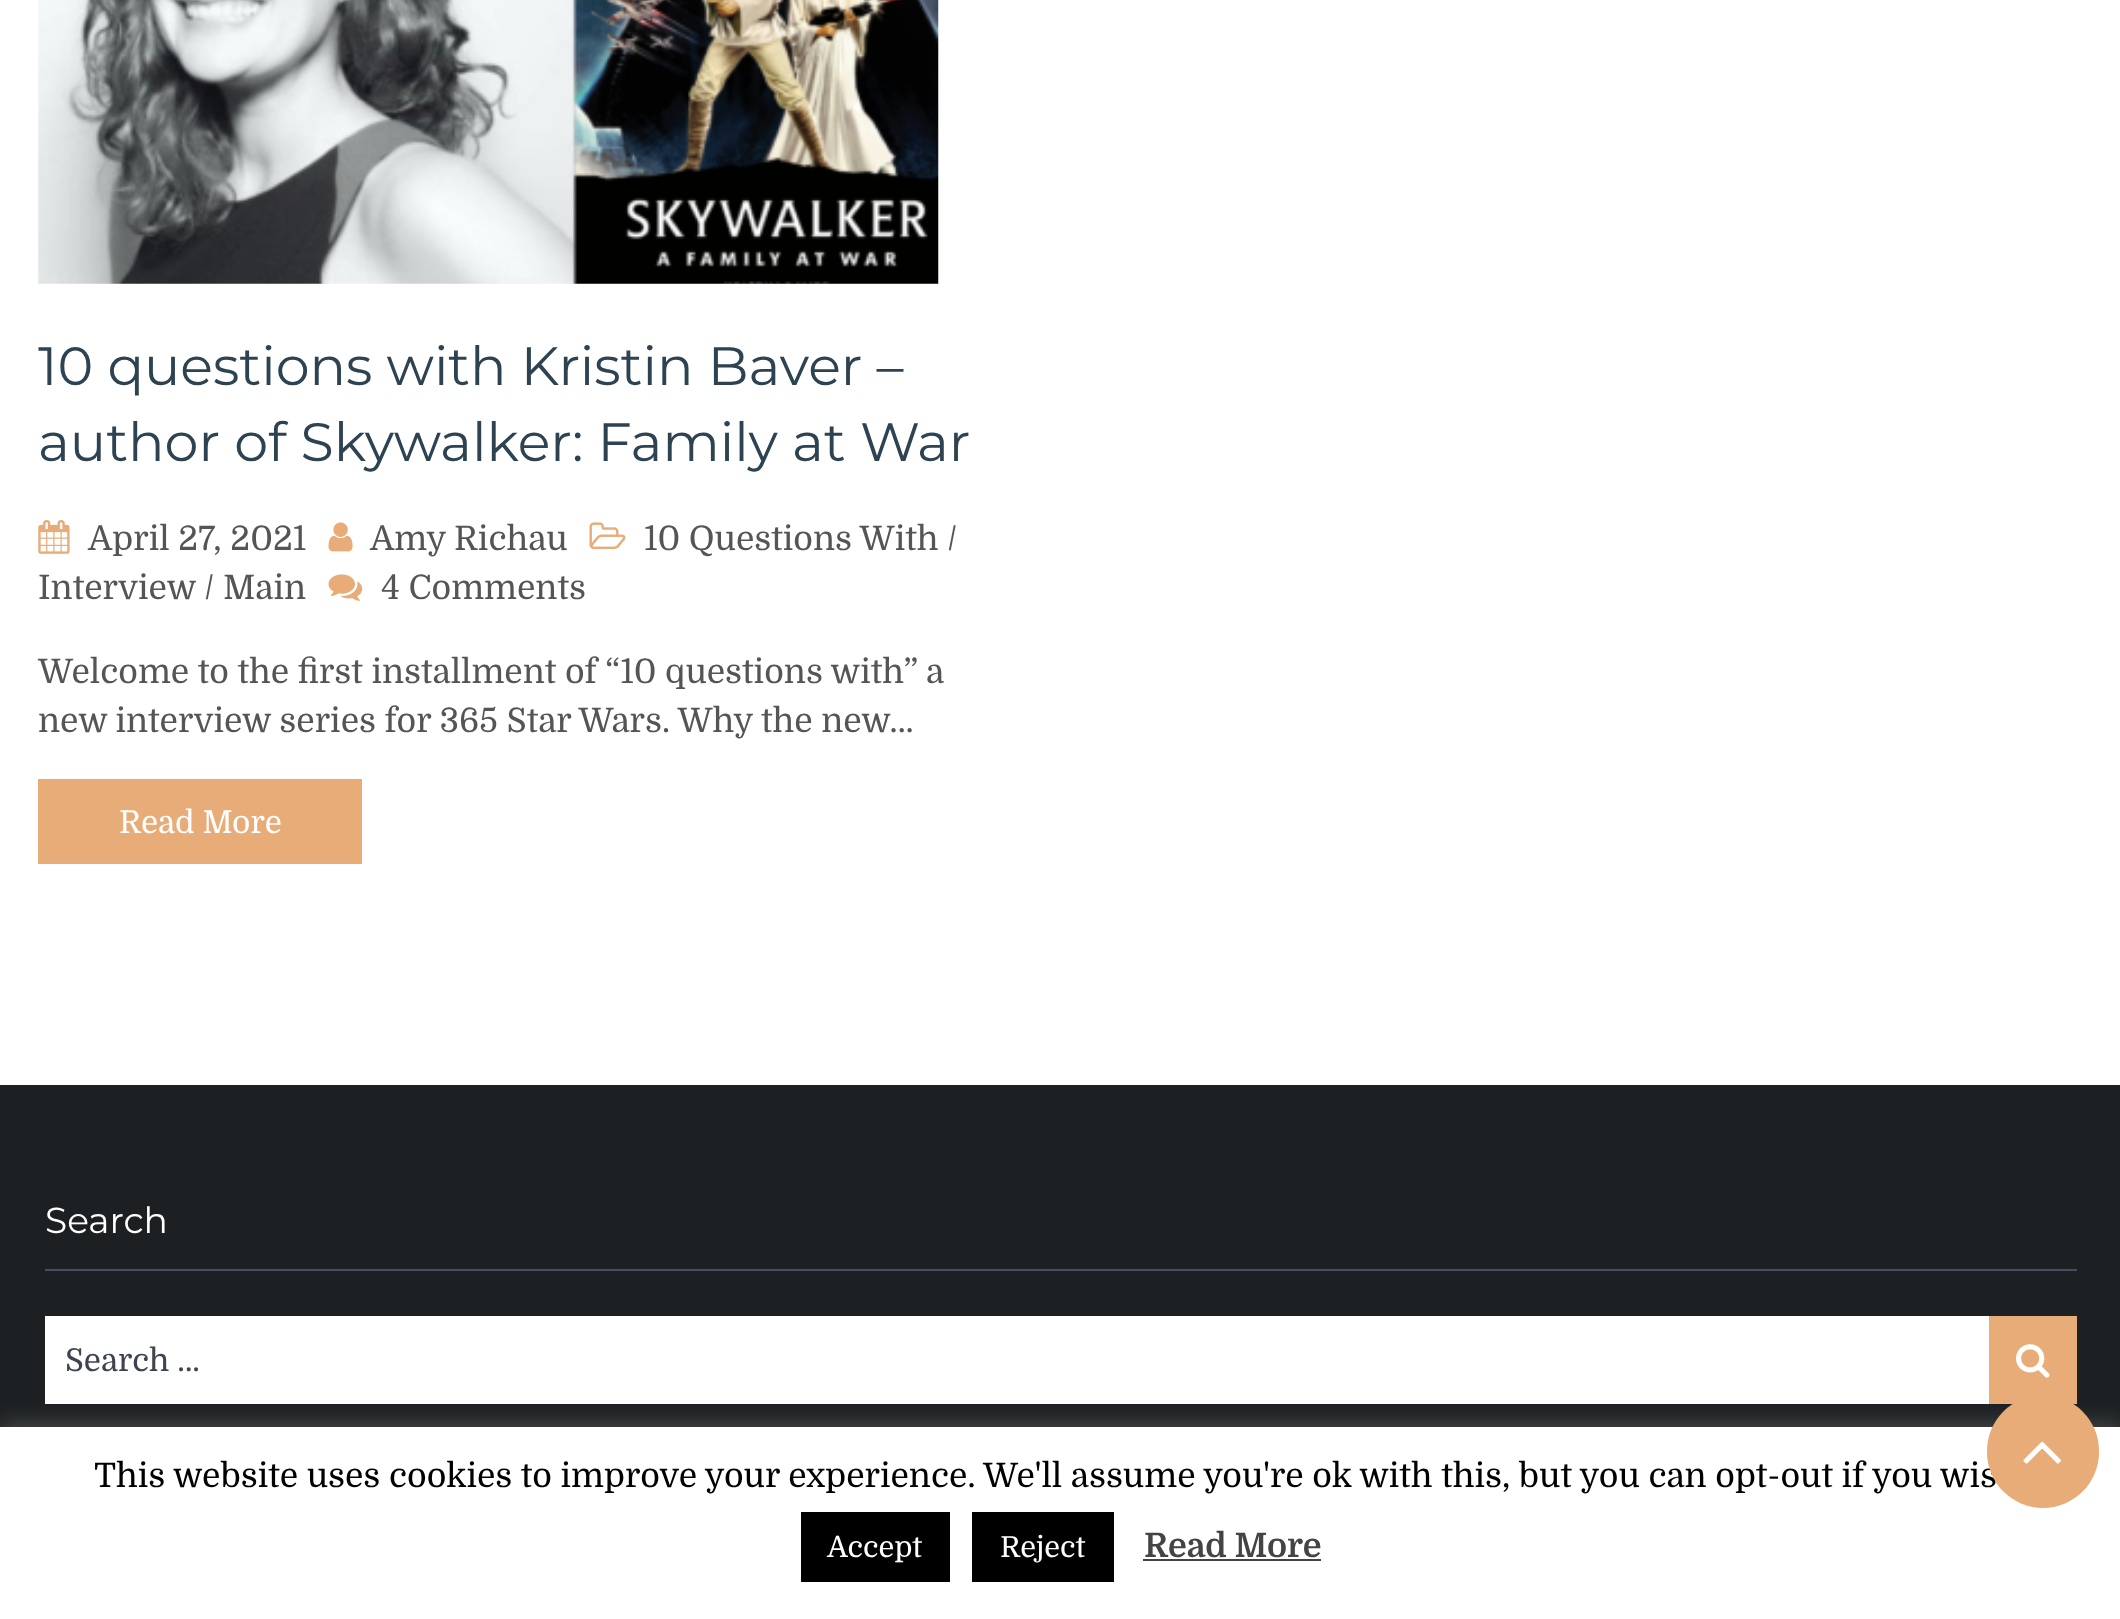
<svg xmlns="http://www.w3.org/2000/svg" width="2120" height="1619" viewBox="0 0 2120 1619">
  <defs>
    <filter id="blur1" x="-50%" y="-200%" width="200%" height="500%"><feGaussianBlur stdDeviation="11"/></filter>
  </defs>
  <rect width="100%" height="100%" fill="#ffffff"/>
  <image x="38" y="0" width="901" height="284" href="img1.png"/>
  <text x="38" y="385" font-family="Montserrat" font-size="54" fill="#2d4351">10 questions with Kristin Baver –</text>
  <text x="38" y="461" font-family="Montserrat" font-size="54" fill="#2d4351">author of Skywalker: Family at War</text>
  <image x="589" y="522" width="37" height="27" href="img2.png"/>
  <text x="644" y="550" font-family="Domine" font-size="33.75" fill="#555555">10 Questions With /</text>
  <text x="38" y="599" font-family="Domine" font-size="33.75" fill="#555555">Interview</text>
  <text x="204" y="599" font-family="Domine" font-size="33.75" fill="#555555">/ Main</text>
  <image x="38" y="520" width="32" height="34" href="img3.png"/>
  <text x="88" y="550" font-family="Domine" font-size="33.75" fill="#555555">April 27, 2021</text>
  <image x="328" y="522" width="25" height="30" href="img4.png"/>
  <text x="370" y="550" font-family="Domine" font-size="33.75" fill="#555555">Amy Richau</text>
  <image x="328" y="574" width="35" height="27" href="img5.png"/>
  <text x="381" y="599" font-family="Domine" font-size="33.75" fill="#555555">4 Comments</text>
  <text x="38" y="683" font-family="Domine" font-size="33.75" fill="#555555">Welcome to the first installment of “10 questions with” a</text>
  <text x="38" y="732" font-family="Domine" font-size="33.75" fill="#555555">new interview series for 365 Star Wars. Why the new…</text>
  <rect x="38" y="779" width="324" height="85" fill="#e8ac78"/>
  <text x="119" y="833" font-family="Domine" font-size="31.5" fill="#ffffff">Read More</text>
  <rect x="0" y="1085" width="2120" height="342" fill="#1d2022"/>
  <rect x="45" y="1269" width="2032" height="2" fill="#464d60"/>
  <text x="45" y="1233" font-family="Montserrat" font-size="36" fill="#ffffff">Search</text>
  <rect x="45" y="1316" width="1944" height="88" fill="#ffffff"/>
  <text x="65" y="1371" font-family="Domine" font-size="31.5" fill="#3d4351">Search …</text>
  <rect x="1989" y="1316" width="88" height="88" fill="#e8ac78"/>
  <image x="2016" y="1344" width="34" height="34" href="img6.png"/>
  <rect x="0" y="1424" width="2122" height="194" fill="#acabab" fill-opacity="0.3" filter="url(#blur1)"/>
  <rect x="0" y="1427" width="2120" height="192" fill="#ffffff"/>
  <text x="94" y="1487" font-family="Domine" font-size="33.75" fill="#000000">This website uses cookies to improve your experience. We'll assume you're ok with this, but you can opt-out if you wis</text>
  <rect x="801" y="1512" width="149" height="70" fill="#000000"/>
  <text x="827" y="1557" font-family="Domine" font-size="29" fill="#ffffff">Accept</text>
  <rect x="972" y="1512" width="142" height="70" fill="#000000"/>
  <text x="1000" y="1557" font-family="Domine" font-size="29" fill="#ffffff">Reject</text>
  <text x="1144" y="1557" font-family="Domine" font-size="33.75" font-weight="bold" fill="#444444">Read More</text>
  <rect x="1143" y="1559" width="178" height="2" fill="#444444"/>
  <rect x="1987" y="1395" width="112" height="113" rx="56" fill="#e8ac78"/>
  <image x="2023" y="1441" width="38" height="23" href="img7.png"/>
</svg>
